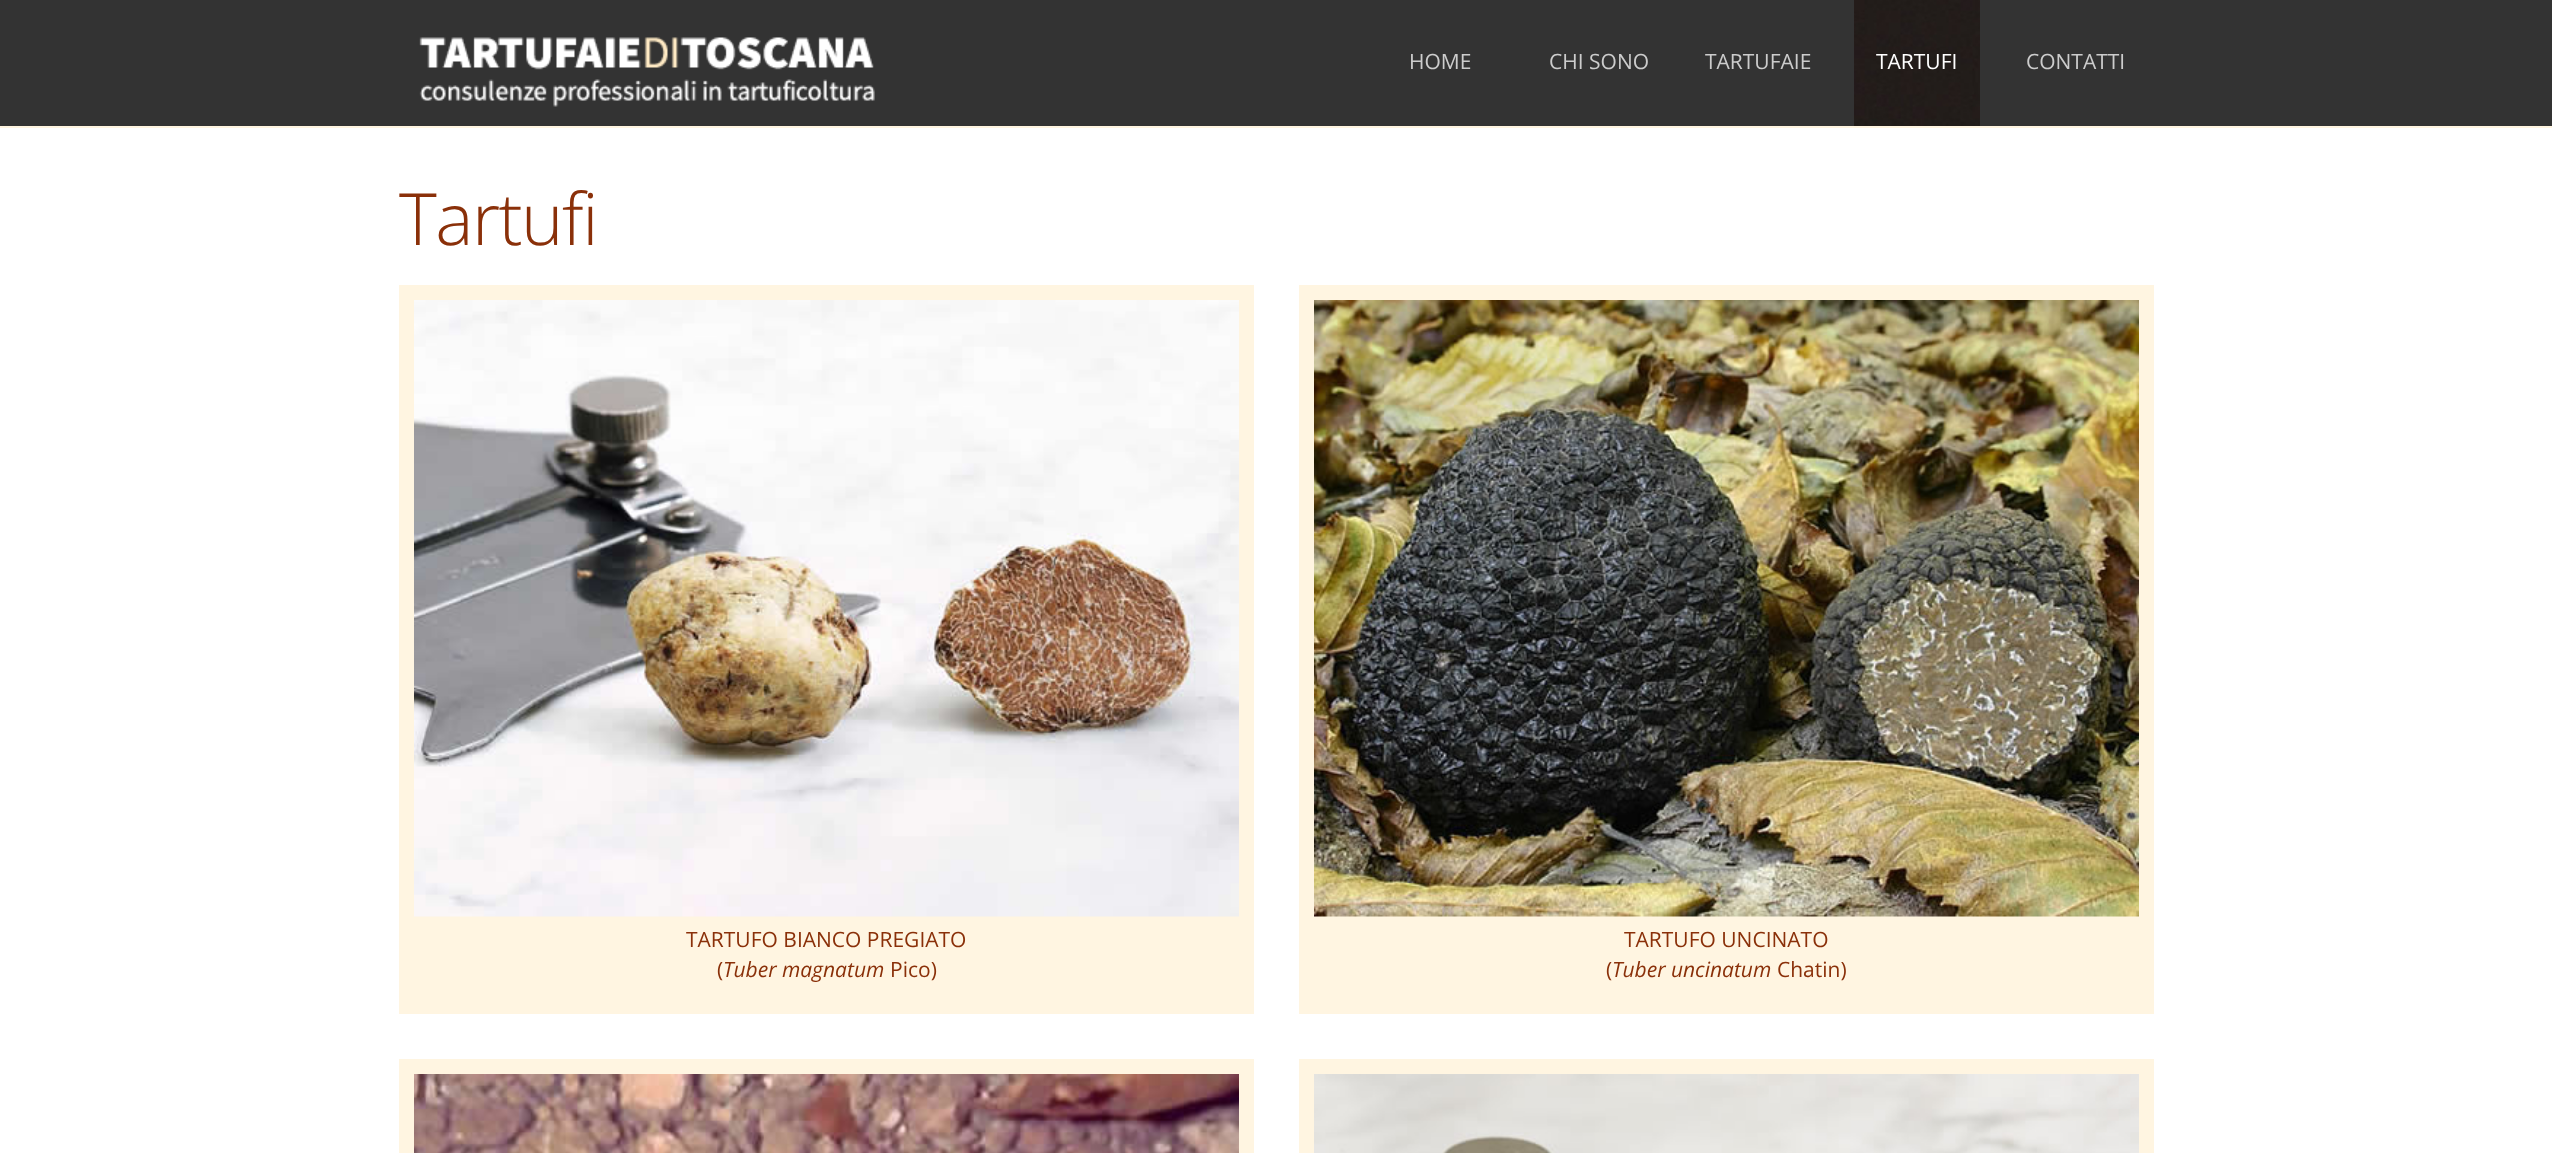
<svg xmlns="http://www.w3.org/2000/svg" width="2552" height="1153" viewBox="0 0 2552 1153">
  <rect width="100%" height="100%" fill="#333333"/>
  <image x="419" y="37" width="456" height="70" href="img1.png"/>
  <text x="1409" y="69" font-family="Open Sans" font-size="21" fill="#cccccc">HOME</text>
  <text x="1549" y="69" font-family="Open Sans" font-size="21" fill="#cccccc">CHI SONO</text>
  <text x="1705" y="69" font-family="Open Sans" font-size="21" fill="#cccccc">TARTUFAIE</text>
  <image x="1854" y="0" width="126" height="126" href="img2.png"/>
  <text x="1876" y="69" font-family="Open Sans" font-size="21" fill="#ffffff">TARTUFI</text>
  <text x="2026" y="69" font-family="Open Sans" font-size="21" fill="#cccccc">CONTATTI</text>
  <rect x="0" y="126" width="2552" height="2" fill="#fff5e1"/>
  <rect x="0" y="128" width="2552" height="1025" fill="#ffffff"/>
  <text x="399" y="245" font-family="Open Sans" font-size="72" font-weight="300" letter-spacing="-1.5" fill="#8a3009">Tartufi</text>
  <rect x="399" y="285" width="855" height="729" fill="#fff5e1"/>
  <image x="414" y="300" width="825" height="617" href="img3.png"/>
  <text x="686" y="947" font-family="Open Sans" font-size="21" fill="#8a3009">TARTUFO BIANCO PREGIATO</text>
  <text x="717" y="977" font-family="Open Sans" font-size="21" fill="#8a3009">(</text>
  <text x="723" y="977" font-family="Open Sans" font-size="21" font-style="italic" fill="#8a3009">Tuber magnatum</text>
  <text x="890" y="977" font-family="Open Sans" font-size="21" fill="#8a3009">Pico)</text>
  <rect x="1299" y="285" width="855" height="729" fill="#fff5e1"/>
  <image x="1314" y="300" width="825" height="617" href="img4.png"/>
  <text x="1624" y="947" font-family="Open Sans" font-size="21" fill="#8a3009">TARTUFO UNCINATO</text>
  <text x="1606" y="977" font-family="Open Sans" font-size="21" fill="#8a3009">(</text>
  <text x="1612" y="977" font-family="Open Sans" font-size="21" font-style="italic" fill="#8a3009">Tuber uncinatum</text>
  <text x="1777" y="977" font-family="Open Sans" font-size="21" fill="#8a3009">Chatin)</text>
  <rect x="399" y="1059" width="855" height="94" fill="#fff5e1"/>
  <image x="414" y="1074" width="825" height="79" href="img5.png"/>
  <rect x="1299" y="1059" width="855" height="94" fill="#fff5e1"/>
  <image x="1314" y="1074" width="825" height="79" href="img6.png"/>
</svg>
